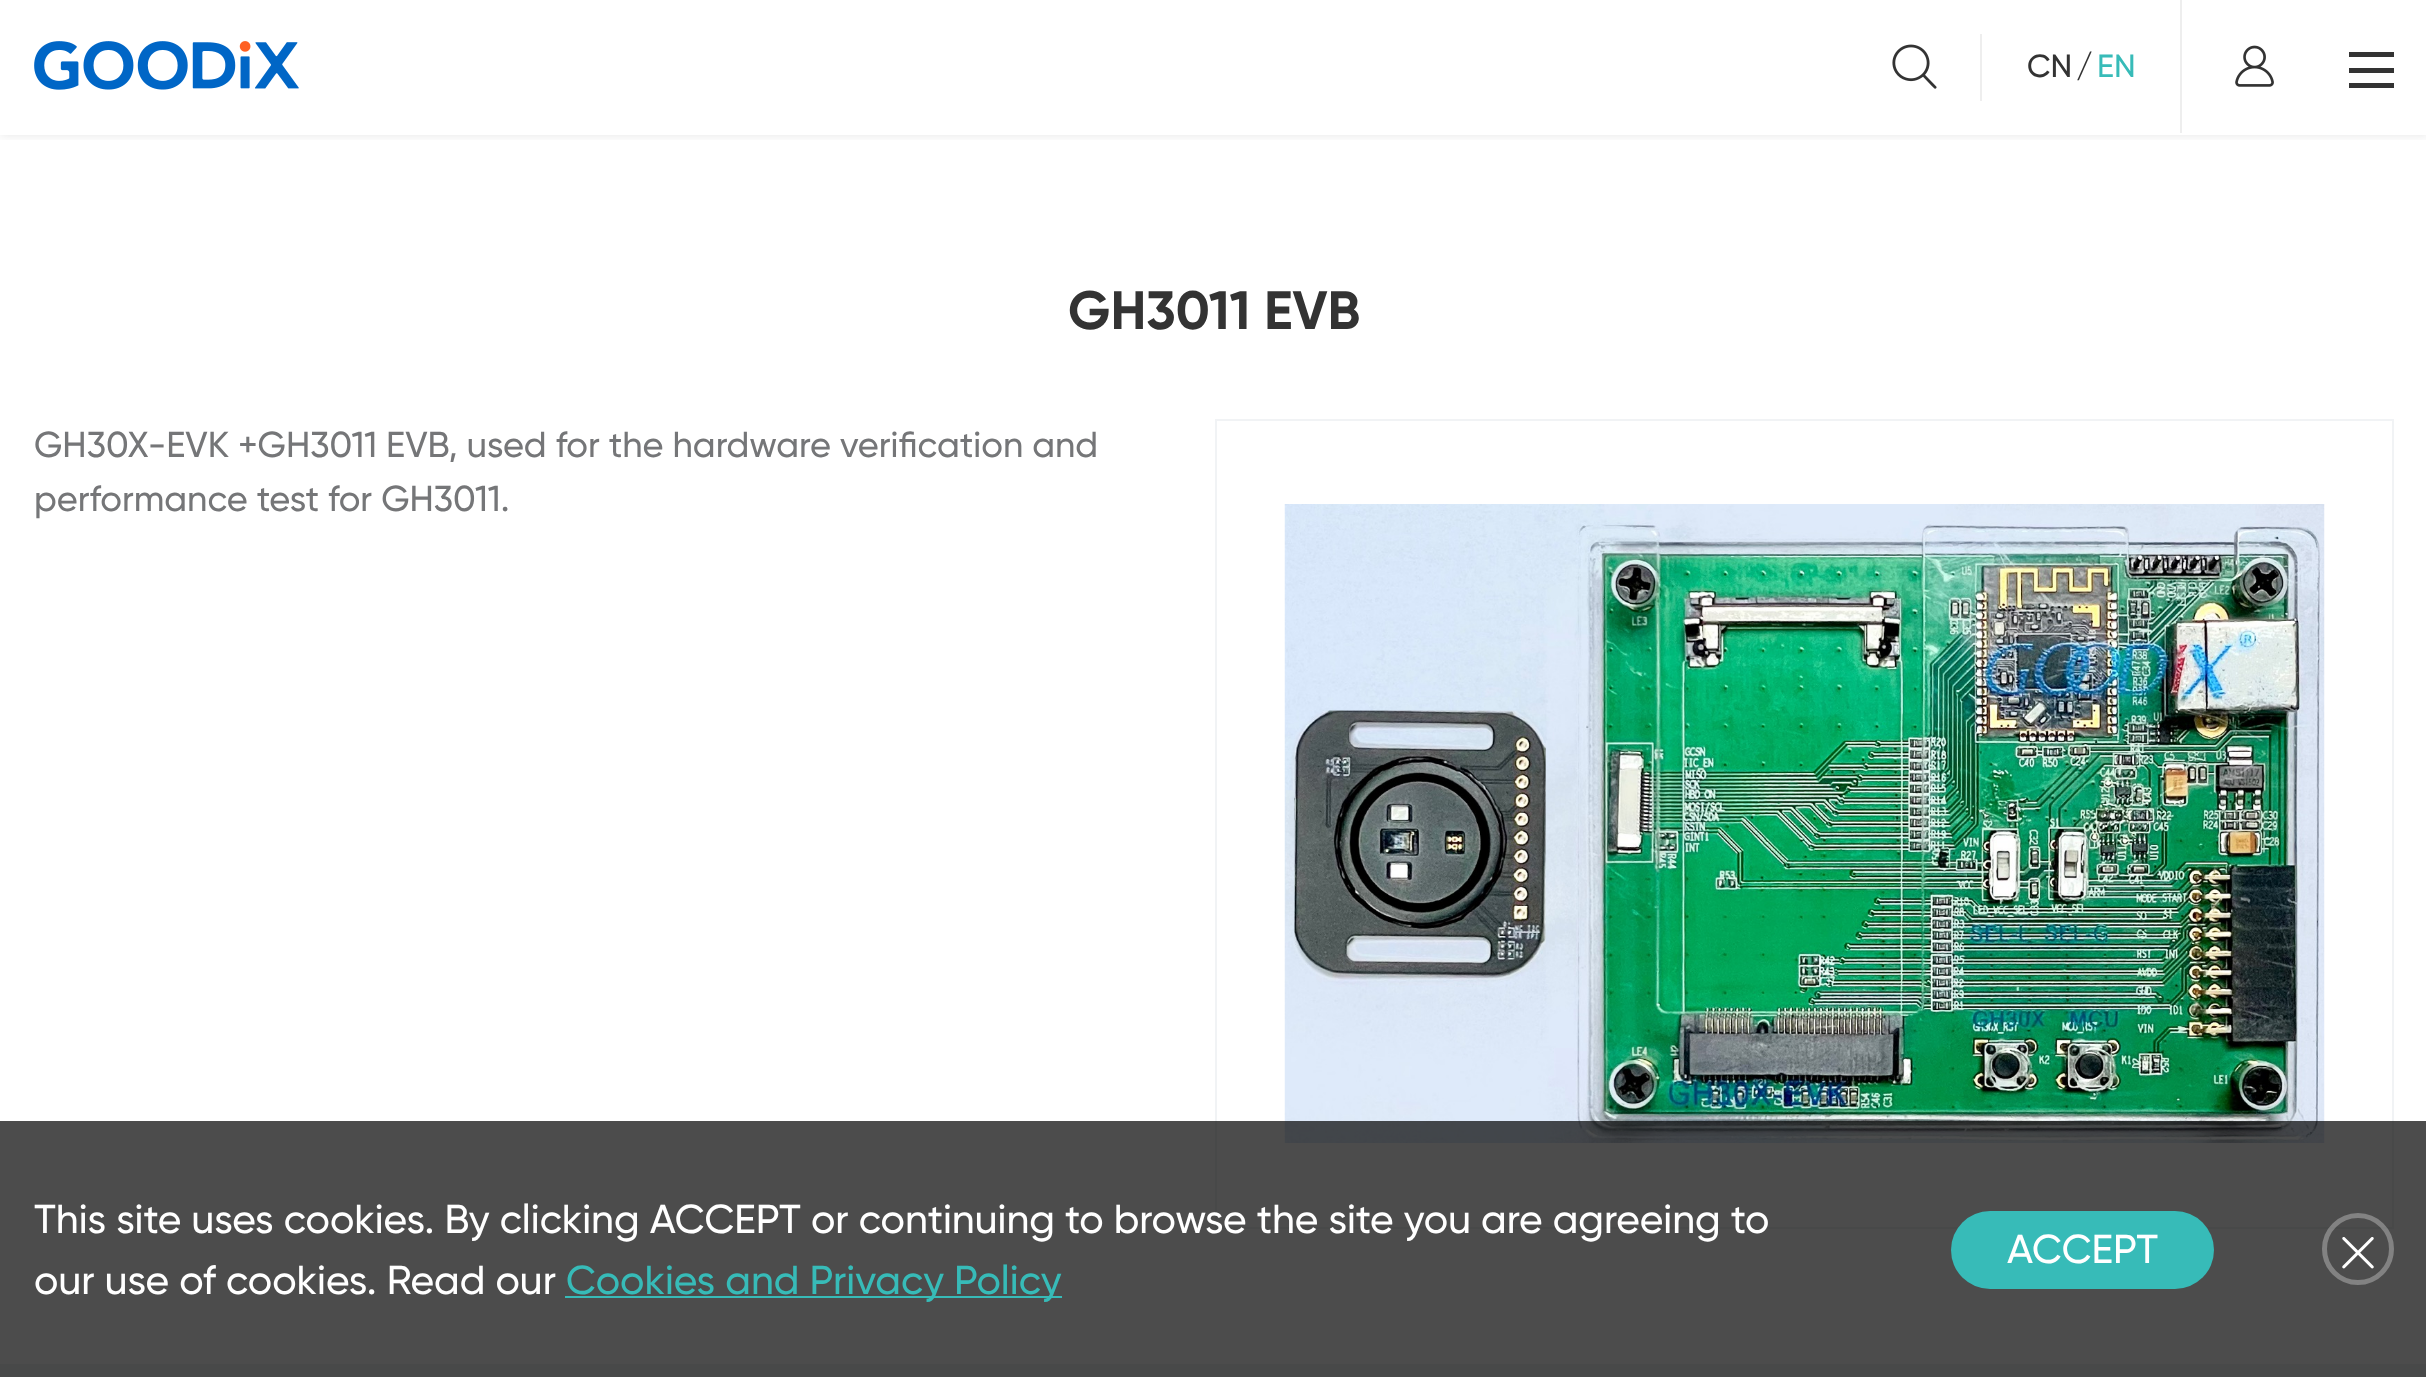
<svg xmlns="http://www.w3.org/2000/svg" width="2426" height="1377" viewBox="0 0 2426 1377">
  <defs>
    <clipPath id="clip1"><rect x="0" y="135" width="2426" height="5"/></clipPath>
    <filter id="blur1" x="-50%" y="-200%" width="200%" height="500%"><feGaussianBlur stdDeviation="5.5"/></filter>
  </defs>
  <rect width="100%" height="100%" fill="#ffffff"/>
  <g clip-path="url(#clip1)">
    <rect x="0" y="0" width="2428" height="135" fill="#000000" fill-opacity="0.1" filter="url(#blur1)"/>
  </g>
  <image x="34" y="41" width="265" height="49" href="img1.png"/>
  <image x="1892" y="44" width="45" height="45" href="img2.png"/>
  <rect x="1980" y="34" width="2" height="67" fill="#eeeeee"/>
  <rect x="2180" y="0" width="2" height="133" fill="#eeeeee"/>
  <text x="2027" y="77" font-family="Gilroy" font-size="32" font-weight="500" fill="#333333">CN</text>
  <text x="2076" y="77" font-family="Gilroy" font-size="32" font-weight="500" fill="#333333">/</text>
  <text x="2097" y="77" font-family="Gilroy" font-size="32" font-weight="500" fill="#37bbb8">EN</text>
  <image x="2235" y="45" width="39" height="42" href="img3.png"/>
  <rect x="2349" y="52" width="45" height="5" fill="#333333"/>
  <rect x="2349" y="68" width="45" height="5" fill="#333333"/>
  <rect x="2349" y="83" width="45" height="5" fill="#333333"/>
  <text x="1068" y="329" font-family="Gilroy" font-size="54" font-weight="bold" fill="#333333">GH3011 EVB</text>
  <text x="34" y="457" font-family="Gilroy" font-size="36" font-weight="500" fill="#757678">GH30X-EVK +GH3011 EVB, used for the hardware verification and</text>
  <text x="34" y="511" font-family="Gilroy" font-size="36" font-weight="500" fill="#757678">performance test for GH3011.</text>
  <rect x="1216" y="420" width="1177" height="808" fill="none" stroke="#f1f3f5" stroke-width="2"/>
  <image x="1284" y="504" width="1041" height="639" href="img4.png"/>
  <rect x="0" y="1364" width="2426" height="13" fill="#f1f3f5"/>
  <rect x="0" y="1121" width="2426" height="256" fill="#000000" fill-opacity="0.7"/>
  <text x="34" y="1233" font-family="Gilroy" font-size="40.5" font-weight="500" fill="#ffffff">This site uses cookies. By clicking ACCEPT or continuing to browse the site you are agreeing to</text>
  <text x="34" y="1294" font-family="Gilroy" font-size="40.5" font-weight="500" fill="#ffffff">our use of cookies. Read our</text>
  <rect x="565" y="1296" width="497" height="2" fill="#37bbb8"/>
  <text x="566" y="1294" font-family="Gilroy" font-size="40.5" font-weight="500" fill="#37bbb8">Cookies and Privacy Policy</text>
  <rect x="1951" y="1211" width="263" height="78" rx="39" fill="#37bbb8"/>
  <text x="2007" y="1263" font-family="Gilroy" font-size="40.5" font-weight="500" fill="#ffffff">ACCEPT</text>
  <circle cx="2358" cy="1249" r="33.5" fill="none" stroke="#ffffff" stroke-opacity="0.3" stroke-width="5"/>
  <image x="2342" y="1237" width="32" height="32" href="img5.png"/>
</svg>
